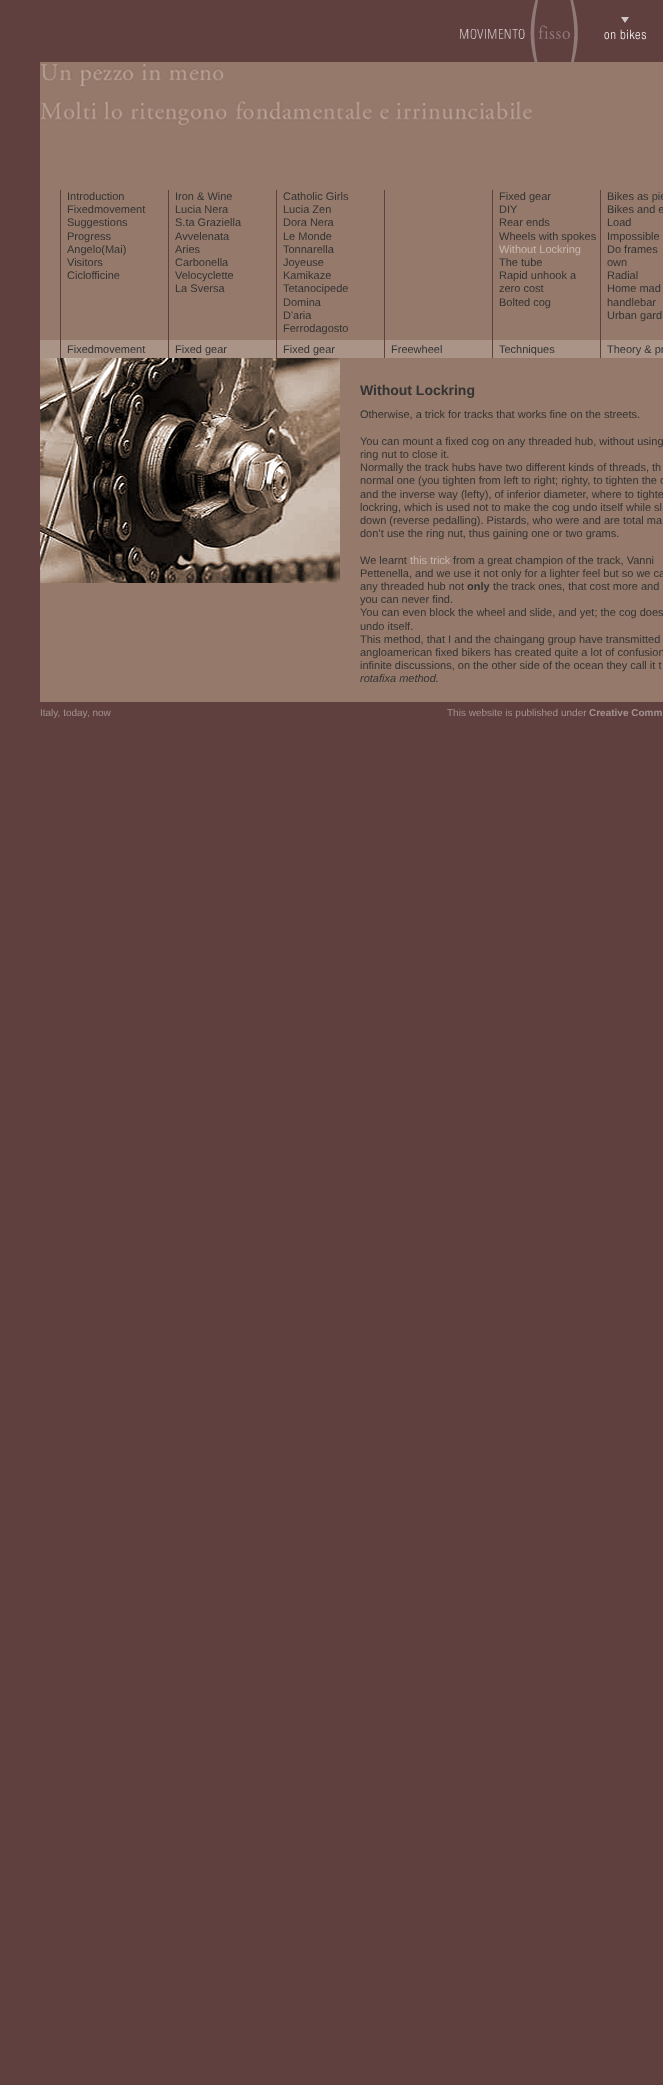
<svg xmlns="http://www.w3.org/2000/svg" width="663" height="2085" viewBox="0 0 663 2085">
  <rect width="100%" height="100%" fill="#5f403e"/>
  <image x="460" y="0" width="118" height="62" href="img1.png"/>
  <image x="604" y="17" width="42" height="23" href="img2.png"/>
  <rect x="40" y="62" width="623" height="640" fill="#95796a"/>
  <image x="40" y="64" width="492" height="61" href="img3.png"/>
  <rect x="60" y="190" width="1" height="168" fill="#5f403e"/>
  <text x="67" y="200" font-family="Liberation Sans" font-size="11" fill="#333333">Introduction</text>
  <text x="67" y="213" font-family="Liberation Sans" font-size="11" fill="#333333">Fixedmovement</text>
  <text x="67" y="226" font-family="Liberation Sans" font-size="11" fill="#333333">Suggestions</text>
  <text x="67" y="240" font-family="Liberation Sans" font-size="11" fill="#333333">Progress</text>
  <text x="67" y="253" font-family="Liberation Sans" font-size="11" fill="#333333">Angelo(Mai)</text>
  <text x="67" y="266" font-family="Liberation Sans" font-size="11" fill="#333333">Visitors</text>
  <text x="67" y="279" font-family="Liberation Sans" font-size="11" fill="#333333">Ciclofficine</text>
  <rect x="168" y="190" width="1" height="168" fill="#5f403e"/>
  <text x="175" y="200" font-family="Liberation Sans" font-size="11" fill="#333333">Iron &amp; Wine</text>
  <text x="175" y="213" font-family="Liberation Sans" font-size="11" fill="#333333">Lucia Nera</text>
  <text x="175" y="226" font-family="Liberation Sans" font-size="11" fill="#333333">S.ta Graziella</text>
  <text x="175" y="240" font-family="Liberation Sans" font-size="11" fill="#333333">Avvelenata</text>
  <text x="175" y="253" font-family="Liberation Sans" font-size="11" fill="#333333">Aries</text>
  <text x="175" y="266" font-family="Liberation Sans" font-size="11" fill="#333333">Carbonella</text>
  <text x="175" y="279" font-family="Liberation Sans" font-size="11" fill="#333333">Velocyclette</text>
  <text x="175" y="292" font-family="Liberation Sans" font-size="11" fill="#333333">La Sversa</text>
  <rect x="276" y="190" width="1" height="168" fill="#5f403e"/>
  <text x="283" y="200" font-family="Liberation Sans" font-size="11" fill="#333333">Catholic Girls</text>
  <text x="283" y="213" font-family="Liberation Sans" font-size="11" fill="#333333">Lucia Zen</text>
  <text x="283" y="226" font-family="Liberation Sans" font-size="11" fill="#333333">Dora Nera</text>
  <text x="283" y="240" font-family="Liberation Sans" font-size="11" fill="#333333">Le Monde</text>
  <text x="283" y="253" font-family="Liberation Sans" font-size="11" fill="#333333">Tonnarella</text>
  <text x="283" y="266" font-family="Liberation Sans" font-size="11" fill="#333333">Joyeuse</text>
  <text x="283" y="279" font-family="Liberation Sans" font-size="11" fill="#333333">Kamikaze</text>
  <text x="283" y="292" font-family="Liberation Sans" font-size="11" fill="#333333">Tetanocipede</text>
  <text x="283" y="306" font-family="Liberation Sans" font-size="11" fill="#333333">Domina</text>
  <text x="283" y="319" font-family="Liberation Sans" font-size="11" fill="#333333">D'aria</text>
  <text x="283" y="332" font-family="Liberation Sans" font-size="11" fill="#333333">Ferrodagosto</text>
  <rect x="384" y="190" width="1" height="168" fill="#5f403e"/>
  <rect x="492" y="190" width="1" height="168" fill="#5f403e"/>
  <text x="499" y="200" font-family="Liberation Sans" font-size="11" fill="#333333">Fixed gear</text>
  <text x="499" y="213" font-family="Liberation Sans" font-size="11" fill="#333333">DIY</text>
  <text x="499" y="226" font-family="Liberation Sans" font-size="11" fill="#333333">Rear ends</text>
  <text x="499" y="240" font-family="Liberation Sans" font-size="11" fill="#333333">Wheels with spokes</text>
  <text x="499" y="253" font-family="Liberation Sans" font-size="11" fill="#c9b7ad">Without Lockring</text>
  <text x="499" y="266" font-family="Liberation Sans" font-size="11" fill="#333333">The tube</text>
  <text x="499" y="279" font-family="Liberation Sans" font-size="11" fill="#333333">Rapid unhook a</text>
  <text x="499" y="292" font-family="Liberation Sans" font-size="11" fill="#333333">zero cost</text>
  <text x="499" y="306" font-family="Liberation Sans" font-size="11" fill="#333333">Bolted cog</text>
  <rect x="600" y="190" width="1" height="168" fill="#5f403e"/>
  <text x="607" y="200" font-family="Liberation Sans" font-size="11" fill="#333333">Bikes as pie</text>
  <text x="607" y="213" font-family="Liberation Sans" font-size="11" fill="#333333">Bikes and e</text>
  <text x="607" y="226" font-family="Liberation Sans" font-size="11" fill="#333333">Load</text>
  <text x="607" y="240" font-family="Liberation Sans" font-size="11" fill="#333333">Impossible</text>
  <text x="607" y="253" font-family="Liberation Sans" font-size="11" fill="#333333">Do frames</text>
  <text x="607" y="266" font-family="Liberation Sans" font-size="11" fill="#333333">own</text>
  <text x="607" y="279" font-family="Liberation Sans" font-size="11" fill="#333333">Radial</text>
  <text x="607" y="292" font-family="Liberation Sans" font-size="11" fill="#333333">Home mad</text>
  <text x="607" y="306" font-family="Liberation Sans" font-size="11" fill="#333333">handlebar</text>
  <text x="607" y="319" font-family="Liberation Sans" font-size="11" fill="#333333">Urban gard</text>
  <rect x="40" y="340" width="20" height="18" fill="#aa9488"/>
  <rect x="61" y="340" width="107" height="18" fill="#aa9488"/>
  <text x="67" y="353" font-family="Liberation Sans" font-size="11" fill="#333333">Fixedmovement</text>
  <rect x="169" y="340" width="107" height="18" fill="#aa9488"/>
  <text x="175" y="353" font-family="Liberation Sans" font-size="11" fill="#333333">Fixed gear</text>
  <rect x="277" y="340" width="107" height="18" fill="#aa9488"/>
  <text x="283" y="353" font-family="Liberation Sans" font-size="11" fill="#333333">Fixed gear</text>
  <rect x="385" y="340" width="107" height="18" fill="#aa9488"/>
  <text x="391" y="353" font-family="Liberation Sans" font-size="11" fill="#333333">Freewheel</text>
  <rect x="493" y="340" width="107" height="18" fill="#aa9488"/>
  <text x="499" y="353" font-family="Liberation Sans" font-size="11" fill="#333333">Techniques</text>
  <rect x="601" y="340" width="62" height="18" fill="#aa9488"/>
  <text x="607" y="353" font-family="Liberation Sans" font-size="11" fill="#333333">Theory &amp; pr</text>
  <image x="40" y="358" width="300" height="225" href="img4.png"/>
  <text x="360" y="395" font-family="Liberation Sans" font-size="14" font-weight="bold" fill="#333333">Without Lockring</text>
  <text x="360" y="418" font-family="Liberation Sans" font-size="11" fill="#333333">Otherwise, a trick for tracks that works fine on the streets.</text>
  <text x="360" y="445" font-family="Liberation Sans" font-size="11" fill="#333333">You can mount a fixed cog on any threaded hub, without using</text>
  <text x="360" y="458" font-family="Liberation Sans" font-size="11" fill="#333333">ring nut to close it.</text>
  <text x="360" y="471" font-family="Liberation Sans" font-size="11" fill="#333333">Normally the track hubs have two different kinds of threads, th</text>
  <text x="360" y="484" font-family="Liberation Sans" font-size="11" fill="#333333">normal one (you tighten from left to right; righty, to tighten the c</text>
  <text x="360" y="498" font-family="Liberation Sans" font-size="11" fill="#333333">and the inverse way (lefty), of inferior diameter, where to tighte</text>
  <text x="360" y="511" font-family="Liberation Sans" font-size="11" fill="#333333">lockring, which is used not to make the cog undo itself while sl</text>
  <text x="360" y="524" font-family="Liberation Sans" font-size="11" fill="#333333">down (reverse pedalling). Pistards, who were and are total ma</text>
  <text x="360" y="537" font-family="Liberation Sans" font-size="11" fill="#333333">don’t use the ring nut, thus gaining one or two grams.</text>
  <text x="360" y="564" font-family="Liberation Sans" font-size="11" fill="#333333">We learnt</text>
  <text x="410" y="564" font-family="Liberation Sans" font-size="11" fill="#c9b7ad">this trick</text>
  <text x="453" y="564" font-family="Liberation Sans" font-size="11" fill="#333333">from a great champion of the track, Vanni</text>
  <text x="360" y="577" font-family="Liberation Sans" font-size="11" fill="#333333">Pettenella, and we use it not only for a lighter feel but so we ca</text>
  <text x="360" y="590" font-family="Liberation Sans" font-size="11" fill="#333333">any threaded hub not</text>
  <text x="467" y="590" font-family="Liberation Sans" font-size="11" font-weight="bold" fill="#333333">only</text>
  <text x="493" y="590" font-family="Liberation Sans" font-size="11" fill="#333333">the track ones, that cost more and</text>
  <text x="360" y="603" font-family="Liberation Sans" font-size="11" fill="#333333">you can never find.</text>
  <text x="360" y="616" font-family="Liberation Sans" font-size="11" fill="#333333">You can even block the wheel and slide, and yet; the cog does</text>
  <text x="360" y="630" font-family="Liberation Sans" font-size="11" fill="#333333">undo itself.</text>
  <text x="360" y="643" font-family="Liberation Sans" font-size="11" fill="#333333">This method, that I and the chaingang group have transmitted</text>
  <text x="360" y="656" font-family="Liberation Sans" font-size="11" fill="#333333">angloamerican fixed bikers has created quite a lot of confusion</text>
  <text x="360" y="669" font-family="Liberation Sans" font-size="11" fill="#333333">infinite discussions, on the other side of the ocean they call it t</text>
  <text x="360" y="682" font-family="Liberation Sans" font-size="11" font-style="italic" fill="#333333">rotafixa method.</text>
  <text x="40" y="716" font-family="Liberation Sans" font-size="10" fill="#a39190">Italy, today, now</text>
  <text x="447" y="716" font-family="Liberation Sans" font-size="10" fill="#a39190">This website is published under</text>
  <text x="589" y="716" font-family="Liberation Sans" font-size="10" font-weight="bold" fill="#a39190">Creative Comm</text>
</svg>
